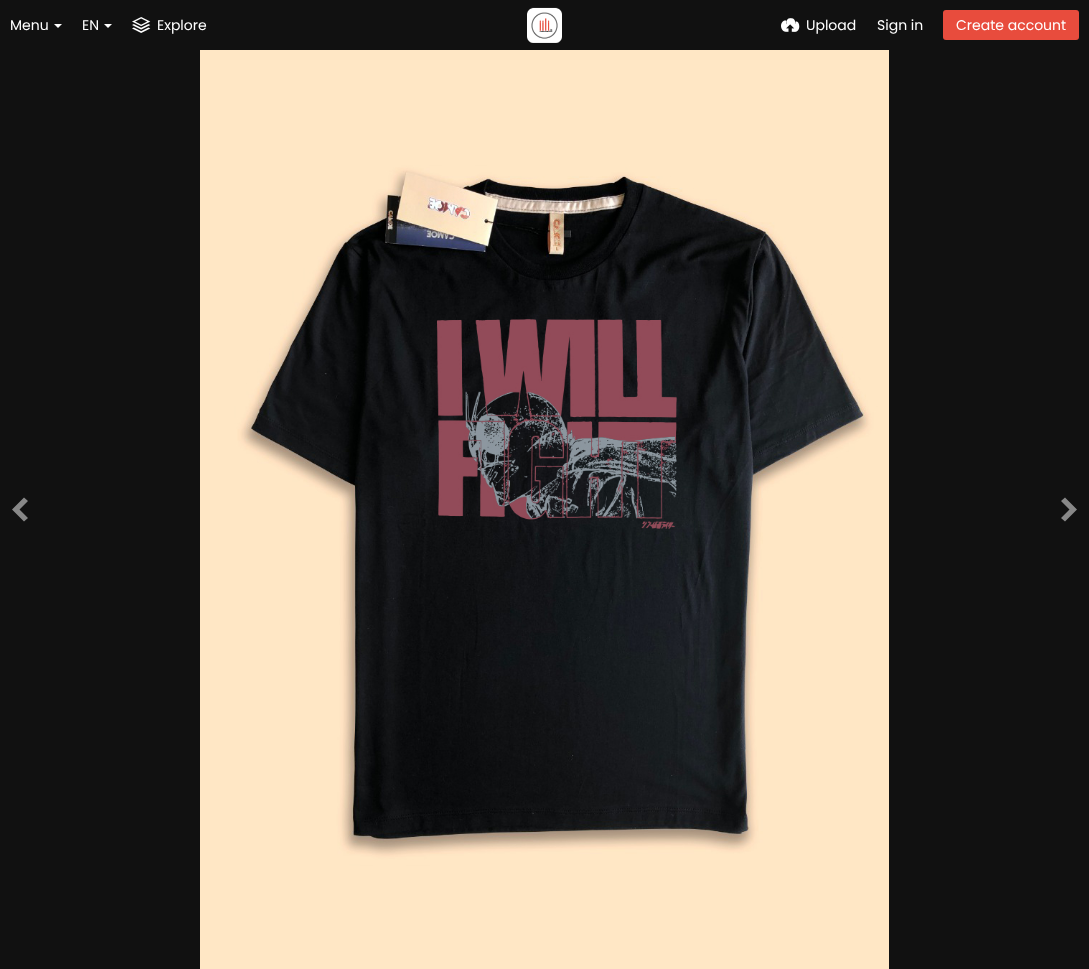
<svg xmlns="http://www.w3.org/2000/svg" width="1089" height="969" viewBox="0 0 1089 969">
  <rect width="100%" height="100%" fill="#111111"/>
  <text x="10" y="30" font-family="Poppins" font-size="14" fill="#ffffff">Menu</text>
  <path d="M54 24H62L58 28Z" fill="#ffffff"/>
  <text x="82" y="30" font-family="Poppins" font-size="14" fill="#ffffff">EN</text>
  <path d="M104 24H112L108 28Z" fill="#ffffff"/>
  <image x="132" y="17" width="19" height="16" href="img1.png"/>
  <text x="157" y="30" font-family="Poppins" font-size="14" fill="#ffffff">Explore</text>
  <image x="527" y="7" width="35" height="36" href="img2.png"/>
  <image x="781" y="18" width="19" height="14" href="img3.png"/>
  <text x="806" y="30" font-family="Poppins" font-size="14" fill="#ffffff">Upload</text>
  <text x="877" y="30" font-family="Poppins" font-size="14" fill="#ffffff">Sign in</text>
  <rect x="943" y="10" width="136" height="30" rx="3" fill="#e84c3d"/>
  <text x="956" y="30" font-family="Poppins" font-size="14" fill="#ffffff">Create account</text>
  <image x="200" y="50" width="689" height="919" href="img4.png"/>
  <path d="M24 497.5L12 509.5L24 521.5L28 518L19.5 509.5L28 501Z" fill="#888888"/>
  <path d="M1065 497.5L1077 509.5L1065 521.5L1061 518L1069.5 509.5L1061 501Z" fill="#888888"/>
</svg>
